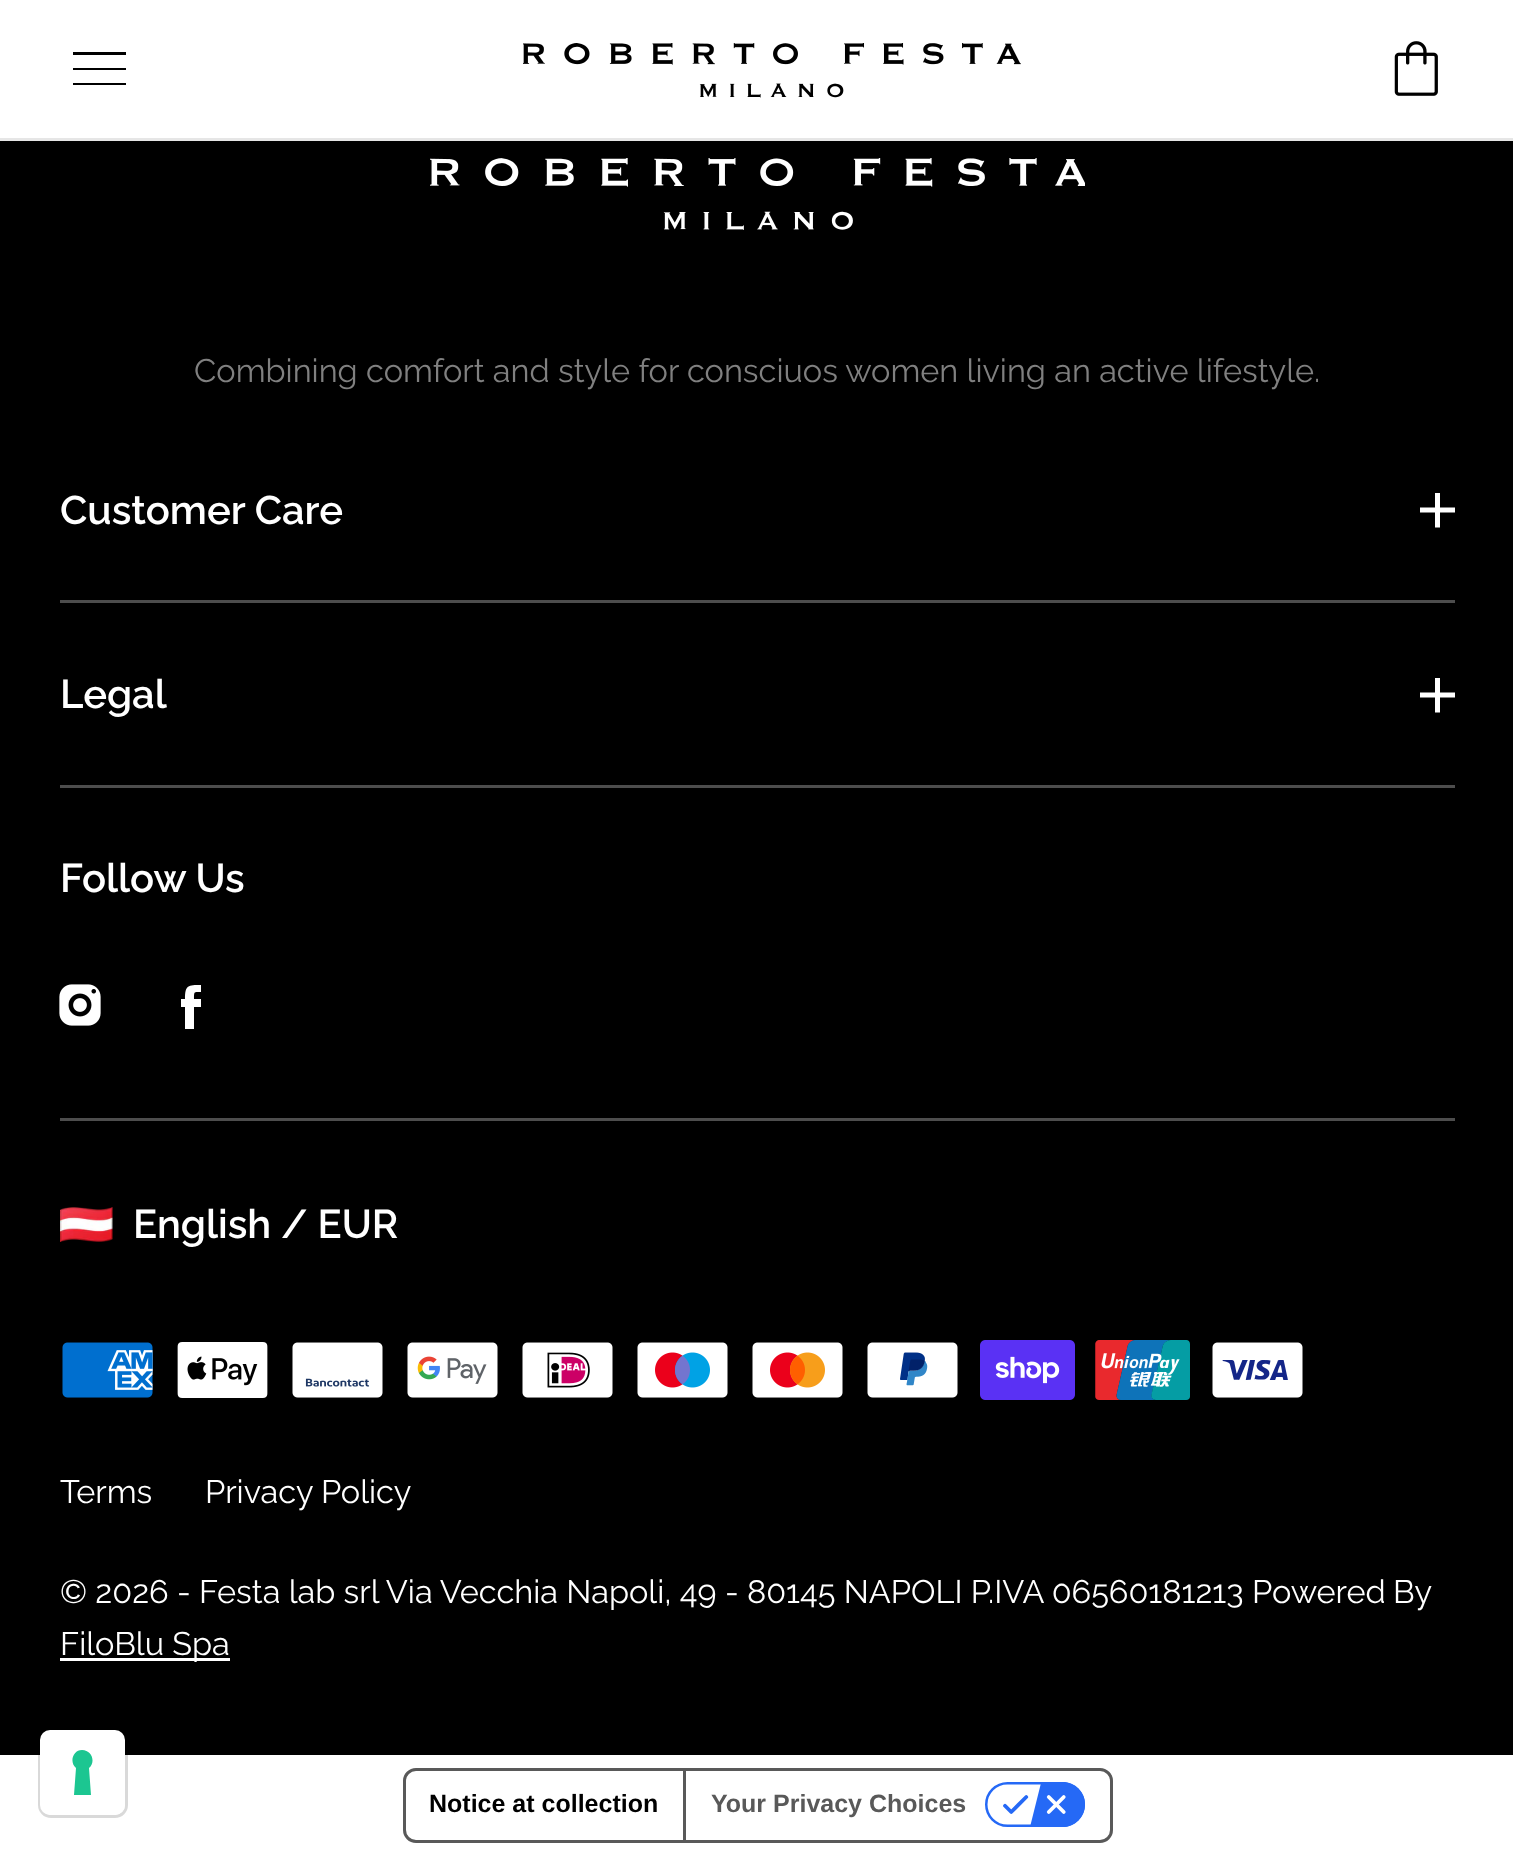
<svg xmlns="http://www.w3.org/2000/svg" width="1513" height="1855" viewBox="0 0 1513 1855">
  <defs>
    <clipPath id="clip1"><rect x="1420" y="493" width="35" height="35"/></clipPath>
    <clipPath id="clip2"><rect x="1420" y="678" width="35" height="35"/></clipPath>
  </defs>
  <rect width="100%" height="100%" fill="#ffffff"/>
  <rect x="0" y="138" width="1513" height="3" fill="#e6e6e6"/>
  <path d="M73 85V83H126V85ZM73 70V68H126V70ZM73 55V52H126V55Z" fill="#000000"/>
  <image x="523" y="43" width="498" height="55" href="img1.png"/>
  <image x="1394" y="41" width="44" height="55" href="img2.png"/>
  <rect x="0" y="141" width="1513" height="1614" fill="#000000"/>
  <image x="430" y="158" width="655" height="72" href="img3.png"/>
  <text x="194" y="382" font-family="Raleway" font-size="32.5" fill="#808080">Combining comfort and style for consciuos women living an active lifestyle.</text>
  <text x="60" y="524" font-family="Raleway" font-size="40" font-weight="600" fill="#ffffff">Customer Care</text>
  <g clip-path="url(#clip1)">
    <path d="M1455 512.5H1440V527.5H1435V512.5H1420V507.5H1435V492.5H1440V507.5H1455Z" fill="#ffffff"/>
  </g>
  <rect x="60" y="600" width="1395" height="3" fill="#4d4d4d"/>
  <text x="60" y="708" font-family="Raleway" font-size="40" font-weight="600" fill="#ffffff">Legal</text>
  <g clip-path="url(#clip2)">
    <path d="M1455 697.5H1440V712.5H1435V697.5H1420V692.5H1435V677.5H1440V692.5H1455Z" fill="#ffffff"/>
  </g>
  <rect x="60" y="785" width="1395" height="3" fill="#4d4d4d"/>
  <text x="60" y="892" font-family="Raleway" font-size="40" font-weight="600" fill="#ffffff">Follow Us</text>
  <image x="59" y="984" width="42" height="42" href="img4.png"/>
  <path d="M201 999H194C194 991 194 992 201 992V985C188 985 185 985 185 999H181V1007H185V1029H194V1007H201Z" fill="#ffffff"/>
  <rect x="60" y="1118" width="1395" height="3" fill="#4d4d4d"/>
  <image x="60" y="1207" width="53" height="35" href="img5.png"/>
  <text x="133" y="1238" font-family="Raleway" font-size="40" font-weight="600" fill="#ffffff">English / EUR</text>
  <image x="62" y="1342" width="91" height="56" href="img6.png"/>
  <image x="177" y="1342" width="91" height="56" href="img7.png"/>
  <image x="292" y="1342" width="91" height="56" href="img8.png"/>
  <image x="407" y="1342" width="91" height="56" href="img9.png"/>
  <image x="522" y="1342" width="91" height="56" href="img10.png"/>
  <image x="637" y="1342" width="91" height="56" href="img11.png"/>
  <image x="752" y="1342" width="91" height="56" href="img12.png"/>
  <image x="867" y="1342" width="91" height="56" href="img13.png"/>
  <image x="980" y="1340" width="95" height="60" href="img14.png"/>
  <image x="1095" y="1340" width="95" height="60" href="img15.png"/>
  <image x="1212" y="1342" width="91" height="56" href="img16.png"/>
  <text x="60" y="1503" font-family="Raleway" font-size="32.5" fill="#ffffff">Terms</text>
  <text x="205" y="1503" font-family="Raleway" font-size="32.5" fill="#ffffff">Privacy Policy</text>
  <text x="60" y="1603" font-family="Raleway" font-size="32.5" fill="#ffffff">© 2026 - Festa lab srl Via Vecchia Napoli, 49 - 80145 NAPOLI P.IVA 06560181213</text>
  <text x="1252" y="1603" word-spacing="-1" font-family="Raleway" font-size="32.5" fill="#ffffff">Powered By</text>
  <rect x="60" y="1658" width="170" height="3" fill="#ffffff"/>
  <text x="60" y="1655" font-family="Raleway" font-size="32.5" fill="#ffffff">FiloBlu Spa</text>
  <rect x="39.5" y="1729.5" width="87" height="87" rx="11.5" fill="none" stroke="#000000" stroke-opacity="0.15" stroke-width="3"/>
  <rect x="40" y="1730" width="85" height="85" rx="10" fill="#ffffff"/>
  <path d="M82 1750C92 1750 96 1762 89 1768L91 1795H74L76 1768C69 1762 73 1750 82 1750Z" fill="#1cc691" fill-rule="evenodd"/>
  <rect x="404.5" y="1769.5" width="707" height="72" rx="11.5" fill="none" stroke="#595959" stroke-width="3"/>
  <text x="429" y="1812" font-family="Liberation Sans" font-size="25" font-weight="bold" fill="#000000">Notice at collection</text>
  <rect x="683" y="1770" width="3" height="70" fill="#595959"/>
  <text x="711" y="1812" font-family="Liberation Sans" font-size="25" font-weight="bold" fill="#595959">Your Privacy Choices</text>
  <image x="985" y="1782" width="100" height="45" href="img17.png"/>
</svg>
